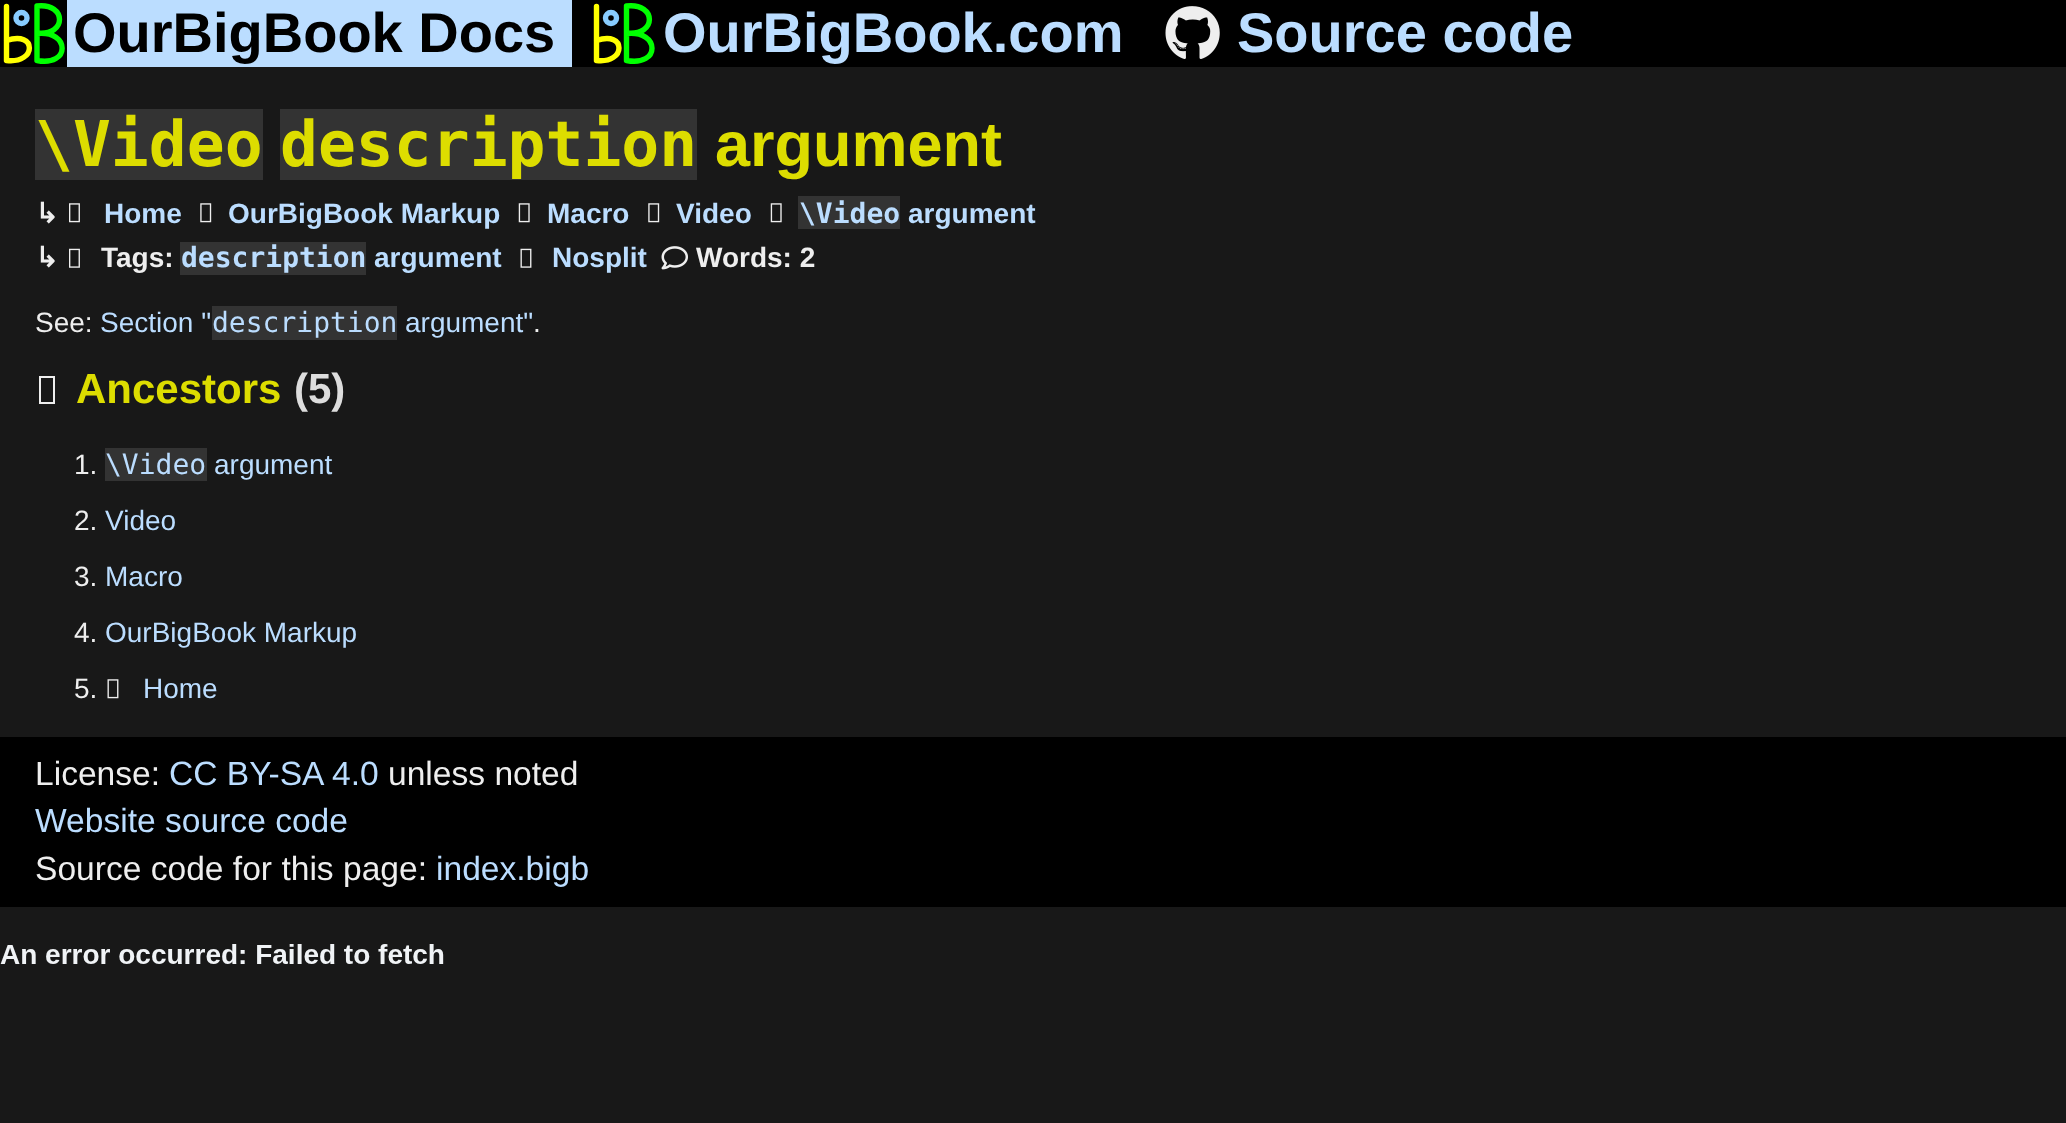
<svg xmlns="http://www.w3.org/2000/svg" width="2066" height="1123" viewBox="0 0 2066 1123">
  <rect width="100%" height="100%" fill="#181818"/>
  <rect x="572" y="0" width="1494" height="67" fill="#000000"/>
  <rect x="67" y="0" width="505" height="67" fill="#bbddff"/>
  <rect x="0" y="0" width="67" height="67" fill="#000000"/>
  <circle cx="21.5" cy="18" r="5.5" fill="none" stroke="#88ccff" stroke-width="5.4"/>
  <path d="M6.5 6.5V60.5M6.5 60.5C37 64 37 30 6.5 40.5" fill="none" stroke="#ffff00" stroke-width="5.4" stroke-linecap="round"/>
  <path d="M37 6.5V60.5M37 60.5C70.5 67 70.5 30 37 33.5M37 33C67 36.5 67 2.5 37 6" fill="none" stroke="#00ff00" stroke-width="5.4" stroke-linecap="round"/>
  <text x="73" y="52" font-family="Liberation Sans" font-size="56" font-weight="bold" fill="#000000">OurBigBook Docs</text>
  <circle cx="611" cy="18" r="5.5" fill="none" stroke="#88ccff" stroke-width="5.4"/>
  <path d="M596.5 6.5V60.5M596.5 60.5C626.5 64 626.5 30 596.5 40.5" fill="none" stroke="#ffff00" stroke-width="5.4" stroke-linecap="round"/>
  <path d="M626.5 6.5V60.5M626.5 60.5C660.5 67 660.5 30 626.5 33.5M626.5 33C657 36.5 657 2.5 626.5 6" fill="none" stroke="#00ff00" stroke-width="5.4" stroke-linecap="round"/>
  <text x="663" y="52" font-family="Liberation Sans" font-size="56" font-weight="bold" fill="#bbddff">OurBigBook.com</text>
  <image x="1165" y="6" width="55" height="53" href="img1.png"/>
  <text x="1237" y="52" font-family="Liberation Sans" font-size="56" font-weight="bold" fill="#bbddff">Source code</text>
  <rect x="35" y="109" width="228" height="71" fill="#333333"/>
  <text x="35" y="166" font-family="DejaVu Sans Mono" font-size="63" font-weight="bold" fill="#dddd00">\Video</text>
  <rect x="280" y="109" width="417" height="71" fill="#333333"/>
  <text x="280" y="166" font-family="DejaVu Sans Mono" font-size="63" font-weight="bold" fill="#dddd00">description</text>
  <text x="715" y="166" font-family="Liberation Sans" font-size="63" font-weight="bold" fill="#dddd00">argument</text>
  <text x="35" y="223" font-family="DejaVu Sans" font-size="28" font-weight="bold" fill="#eeeeee">↳</text>
  <image x="69" y="203" width="11" height="20" href="img2.png"/>
  <text x="104" y="223" font-family="Liberation Sans" font-size="28" font-weight="bold" fill="#bbddff">Home</text>
  <image x="200" y="203" width="12" height="20" href="img3.png"/>
  <text x="228" y="223" font-family="Liberation Sans" font-size="28" font-weight="bold" fill="#bbddff">OurBigBook Markup</text>
  <image x="518" y="203" width="12" height="20" href="img4.png"/>
  <text x="547" y="223" font-family="Liberation Sans" font-size="28" font-weight="bold" fill="#bbddff">Macro</text>
  <image x="648" y="203" width="12" height="20" href="img3.png"/>
  <text x="676" y="223" font-family="Liberation Sans" font-size="28" font-weight="bold" fill="#bbddff">Video</text>
  <image x="770" y="203" width="12" height="20" href="img4.png"/>
  <rect x="798" y="196" width="102" height="33" fill="#333333"/>
  <text x="799" y="223" font-family="DejaVu Sans Mono" font-size="28" font-weight="bold" fill="#bbddff">\Video</text>
  <text x="908" y="223" font-family="Liberation Sans" font-size="28" font-weight="bold" fill="#bbddff">argument</text>
  <text x="35" y="267" font-family="DejaVu Sans" font-size="28" font-weight="bold" fill="#eeeeee">↳</text>
  <image x="69" y="248" width="11" height="20" href="img5.png"/>
  <text x="101" y="267" font-family="Liberation Sans" font-size="28" font-weight="bold" fill="#eeeeee">Tags:</text>
  <rect x="180" y="242" width="186" height="33" fill="#333333"/>
  <text x="181" y="267" font-family="DejaVu Sans Mono" font-size="28" font-weight="bold" fill="#bbddff">description</text>
  <text x="374" y="267" font-family="Liberation Sans" font-size="28" font-weight="bold" fill="#bbddff">argument</text>
  <image x="520" y="248" width="12" height="20" href="img6.png"/>
  <text x="552" y="267" font-family="Liberation Sans" font-size="28" font-weight="bold" fill="#bbddff">Nosplit</text>
  <image x="661" y="246" width="27" height="24" href="img7.png"/>
  <text x="696" y="267" font-family="Liberation Sans" font-size="28" font-weight="bold" fill="#eeeeee">Words: 2</text>
  <text x="35" y="332" font-family="Liberation Sans" font-size="28" fill="#eeeeee">See:</text>
  <text x="100" y="332" font-family="Liberation Sans" font-size="28" fill="#bbddff">Section "</text>
  <rect x="212" y="306" width="185" height="34" fill="#333333"/>
  <text x="212" y="332" font-family="DejaVu Sans Mono" font-size="28" fill="#bbddff">description</text>
  <text x="405" y="332" font-family="Liberation Sans" font-size="28" fill="#bbddff">argument"</text>
  <text x="533" y="332" font-family="Liberation Sans" font-size="28" fill="#eeeeee">.</text>
  <text x="76" y="403" font-family="Liberation Sans" font-size="42" font-weight="bold" fill="#dddd00">Ancestors</text>
  <path d="M39 404V376H55V404ZM41 402H53V378H41Z" fill="#eeeeee"/>
  <text x="294" y="403" font-family="Liberation Sans" font-size="42" font-weight="bold" fill="#dddddd">(5)</text>
  <text x="74" y="474" font-family="Liberation Sans" font-size="28" fill="#eeeeee">1.</text>
  <rect x="105" y="448" width="102" height="33" fill="#333333"/>
  <text x="105" y="474" font-family="DejaVu Sans Mono" font-size="28" fill="#bbddff">\Video</text>
  <text x="214" y="474" font-family="Liberation Sans" font-size="28" fill="#bbddff">argument</text>
  <text x="74" y="530" font-family="Liberation Sans" font-size="28" fill="#eeeeee">2.</text>
  <text x="105" y="530" font-family="Liberation Sans" font-size="28" fill="#bbddff">Video</text>
  <text x="74" y="586" font-family="Liberation Sans" font-size="28" fill="#eeeeee">3.</text>
  <text x="105" y="586" font-family="Liberation Sans" font-size="28" fill="#bbddff">Macro</text>
  <text x="74" y="642" font-family="Liberation Sans" font-size="28" fill="#eeeeee">4.</text>
  <text x="105" y="642" font-family="Liberation Sans" font-size="28" fill="#bbddff">OurBigBook Markup</text>
  <text x="74" y="698" font-family="Liberation Sans" font-size="28" fill="#eeeeee">5.</text>
  <image x="107" y="679" width="12" height="20" href="img8.png"/>
  <text x="143" y="698" font-family="Liberation Sans" font-size="28" fill="#bbddff">Home</text>
  <rect x="0" y="737" width="2066" height="170" fill="#000000"/>
  <text x="35" y="785" font-family="Liberation Sans" font-size="33.6" fill="#eeeeee">License:</text>
  <text x="169" y="785" font-family="Liberation Sans" font-size="33.6" fill="#bbddff">CC BY-SA 4.0</text>
  <text x="388" y="785" font-family="Liberation Sans" font-size="33.6" fill="#eeeeee">unless noted</text>
  <text x="35" y="832" font-family="Liberation Sans" font-size="33.6" fill="#bbddff">Website source code</text>
  <text x="35" y="880" font-family="Liberation Sans" font-size="33.6" fill="#eeeeee">Source code for this page:</text>
  <text x="436" y="880" font-family="Liberation Sans" font-size="33.6" fill="#bbddff">index.bigb</text>
  <image x="0" y="944" width="444" height="20" href="img9.png"/>
</svg>
